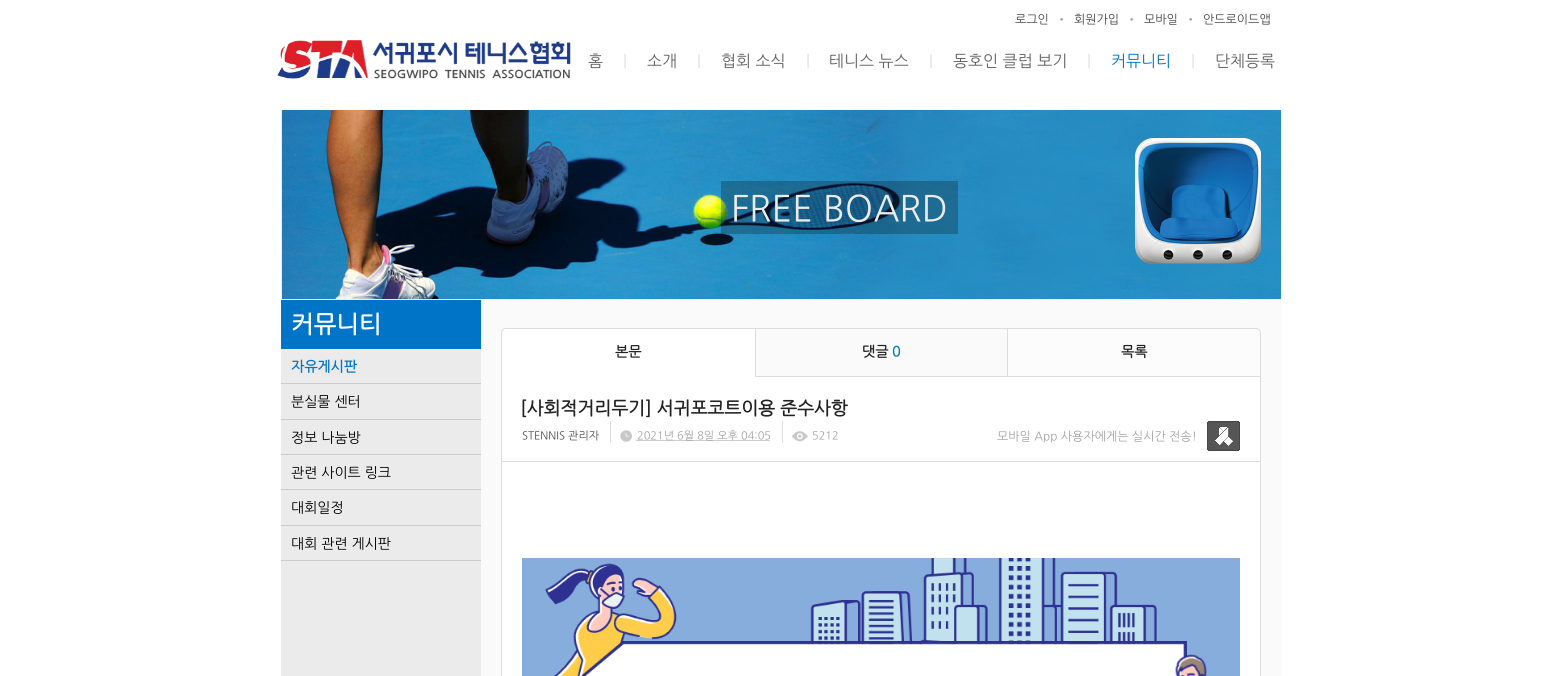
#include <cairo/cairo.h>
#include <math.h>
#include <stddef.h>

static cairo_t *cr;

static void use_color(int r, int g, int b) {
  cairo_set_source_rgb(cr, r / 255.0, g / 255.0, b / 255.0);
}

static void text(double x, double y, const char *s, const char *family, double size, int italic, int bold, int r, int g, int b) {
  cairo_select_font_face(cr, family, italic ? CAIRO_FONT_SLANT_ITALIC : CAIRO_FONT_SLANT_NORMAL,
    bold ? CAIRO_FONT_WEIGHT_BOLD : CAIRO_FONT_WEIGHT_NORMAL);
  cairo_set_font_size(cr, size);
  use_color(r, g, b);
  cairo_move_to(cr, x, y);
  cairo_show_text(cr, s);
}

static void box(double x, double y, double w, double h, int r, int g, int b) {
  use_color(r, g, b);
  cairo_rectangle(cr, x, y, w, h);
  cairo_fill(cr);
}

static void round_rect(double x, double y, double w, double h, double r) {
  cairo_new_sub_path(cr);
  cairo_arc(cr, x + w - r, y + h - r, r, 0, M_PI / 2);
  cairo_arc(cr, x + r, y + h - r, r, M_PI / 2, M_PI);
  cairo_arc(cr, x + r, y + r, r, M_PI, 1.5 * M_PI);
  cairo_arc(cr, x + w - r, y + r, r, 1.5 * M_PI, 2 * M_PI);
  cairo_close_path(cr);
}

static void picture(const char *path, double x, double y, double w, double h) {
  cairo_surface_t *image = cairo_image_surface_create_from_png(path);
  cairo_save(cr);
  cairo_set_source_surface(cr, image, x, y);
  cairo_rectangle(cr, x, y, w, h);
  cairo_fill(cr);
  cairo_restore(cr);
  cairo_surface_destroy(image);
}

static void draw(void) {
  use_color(255, 255, 255);
  cairo_paint(cr);
  picture("img_01.png", 277, 40, 294, 39);
  box(281, 110, 200, 566, 235, 235, 235);
  box(281, 560, 200, 1, 204, 204, 204);
  box(281, 300, 200, 49, 0, 117, 200);
  box(281, 383, 200, 1, 204, 204, 204);
  box(281, 419, 200, 1, 204, 204, 204);
  box(281, 454, 200, 1, 204, 204, 204);
  box(281, 489, 200, 1, 204, 204, 204);
  box(281, 525, 200, 1, 204, 204, 204);
  box(481, 299, 800, 377, 250, 250, 250);
  picture("img_02.png", 282, 110, 999, 189);
  cairo_set_source_rgba(cr, 0.043, 0.047, 0.051, 0.26);
  cairo_rectangle(cr, 721, 181, 237, 53);
  cairo_fill(cr);
  picture("img_03.png", 1135, 138, 126, 126);
  round_rect(501.5, 328.5, 759, 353, 4.5);
  use_color(221, 221, 221);
  cairo_set_line_width(cr, 1);
  cairo_stroke(cr);
  use_color(255, 255, 255);
  cairo_new_path(cr);
  cairo_move_to(cr, 507, 329);
  cairo_line_to(cr, 755, 329);
  cairo_line_to(cr, 755, 377);
  cairo_line_to(cr, 502, 377);
  cairo_line_to(cr, 502, 334);
  cairo_curve_to(cr, 502, 331, 504, 329, 507, 329);
  cairo_close_path(cr);
  cairo_fill(cr);
  box(755, 376, 252, 1, 221, 221, 221);
  box(755, 329, 1, 48, 221, 221, 221);
  use_color(252, 252, 252);
  cairo_new_path(cr);
  cairo_move_to(cr, 1007, 329);
  cairo_line_to(cr, 1255, 329);
  cairo_curve_to(cr, 1258, 329, 1260, 331, 1260, 334);
  cairo_line_to(cr, 1260, 377);
  cairo_line_to(cr, 1007, 377);
  cairo_close_path(cr);
  cairo_fill(cr);
  box(1007, 376, 253, 1, 221, 221, 221);
  box(1007, 329, 1, 48, 221, 221, 221);
  box(502, 377, 758, 299, 255, 255, 255);
  box(502, 461, 758, 1, 221, 221, 221);
  box(610, 421, 1, 22, 221, 221, 221);
  cairo_new_path(cr);
  cairo_move_to(cr, 636.5, 440.5);
  cairo_line_to(cr, 770.5, 440.5);
  use_color(157, 157, 157);
  cairo_set_dash(cr, (double[]){1, 1}, 2, 0);
  cairo_stroke(cr);
  box(782, 421, 1, 22, 221, 221, 221);
  picture("img_04.png", 1207, 421, 33, 30);
  picture("img_05.png", 522, 558, 718, 118);
  text(1015, 23, "로그인", "NanumGothic", 12, 0, 0, 66, 66, 66);
  text(1056, 23, "•", "NanumGothic", 12, 0, 0, 161, 161, 161);
  text(1074, 23, "회원가입", "NanumGothic", 12, 0, 0, 66, 66, 66);
  text(1126, 23, "•", "NanumGothic", 12, 0, 0, 161, 161, 161);
  text(1144, 23, "모바일", "NanumGothic", 12, 0, 0, 66, 66, 66);
  text(1185, 23, "•", "NanumGothic", 12, 0, 0, 161, 161, 161);
  text(1203, 23, "안드로이드앱", "NanumGothic", 12, 0, 0, 66, 66, 66);
  text(588, 66, "홈", "NanumGothic", 16, 0, 0, 99, 99, 99);
  text(623, 66, "|", "NanumGothic", 16, 0, 0, 222, 222, 222);
  text(647, 66, "소개", "NanumGothic", 16, 0, 0, 99, 99, 99);
  text(697, 66, "|", "NanumGothic", 16, 0, 0, 222, 222, 222);
  text(721, 66, "협회 소식", "NanumGothic", 16, 0, 0, 99, 99, 99);
  text(806, 66, "|", "NanumGothic", 16, 0, 0, 222, 222, 222);
  text(829, 66, "테니스 뉴스", "NanumGothic", 16, 0, 0, 99, 99, 99);
  text(929, 66, "|", "NanumGothic", 16, 0, 0, 222, 222, 222);
  text(953, 66, "동호인 클럽 보기", "NanumGothic", 16, 0, 0, 99, 99, 99);
  text(1087, 66, "|", "NanumGothic", 16, 0, 0, 222, 222, 222);
  text(1111, 66, "커뮤니티", "NanumGothic", 16, 0, 0, 0, 117, 200);
  text(1191, 66, "|", "NanumGothic", 16, 0, 0, 222, 222, 222);
  text(1215, 66, "단체등록", "NanumGothic", 16, 0, 0, 99, 99, 99);
  text(291, 332, "커뮤니티", "NanumGothic", 24, 0, 1, 255, 255, 255);
  text(291, 371, "자유게시판", "NanumGothic", 14, 0, 1, 0, 117, 200);
  text(291, 406, "분실물 센터", "NanumGothic", 14, 0, 0, 0, 0, 0);
  text(291, 442, "정보 나눔방", "NanumGothic", 14, 0, 0, 0, 0, 0);
  text(291, 477, "관련 사이트 링크", "NanumGothic", 14, 0, 0, 0, 0, 0);
  text(291, 512, "대회일정", "NanumGothic", 14, 0, 0, 0, 0, 0);
  text(291, 548, "대회 관련 게시판", "NanumGothic", 14, 0, 0, 0, 0, 0);
  text(731, 220, "FREE BOARD", "NanumGothic", 36, 0, 0, 235, 235, 235);
  text(615, 356, "본문", "NanumGothic", 14, 0, 1, 34, 34, 34);
  text(862, 356, "댓글", "NanumGothic", 14, 0, 1, 34, 34, 34);
  text(892, 356, "0", "NanumGothic", 14, 0, 1, 0, 117, 200);
  text(1121, 356, "목록", "NanumGothic", 14, 0, 1, 34, 34, 34);
  text(520, 414, "[사회적거리두기] 서귀포코트이용 준수사항", "NanumGothic", 18, 0, 1, 34, 34, 34);
  text(522, 439, "STENNIS 관리자", "NanumGothic", 11, 0, 0, 76, 76, 76);
  text(619, 439, "C", "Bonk", 22, 0, 0, 200, 200, 200);
  text(637, 439, "2021년 6월 8일 오후 04:05", "NanumGothic", 11, 0, 0, 161, 161, 161);
  text(791, 439, "e", "Bonk", 22, 0, 0, 200, 200, 200);
  text(812, 439, "5212", "NanumGothic", 11, 0, 0, 161, 161, 161);
  text(997, 440, "모바일 App 사용자에게는 실시간 전송!", "NanumGothic", 12, 0, 0, 161, 161, 161);
}

int main(void) {
  cairo_surface_t *surface = cairo_image_surface_create(CAIRO_FORMAT_RGB24, 1562, 676);
  cr = cairo_create(surface);
  cairo_font_options_t *options = cairo_font_options_create();
  cairo_font_options_set_hint_metrics(options, CAIRO_HINT_METRICS_OFF);
  cairo_font_options_set_hint_style(options, CAIRO_HINT_STYLE_NONE);
  cairo_set_font_options(cr, options);
  cairo_set_miter_limit(cr, 4);
  draw();
  cairo_surface_write_to_png(surface, "out.png");
  cairo_font_options_destroy(options);
  cairo_destroy(cr);
  cairo_surface_destroy(surface);
  return 0;
}
